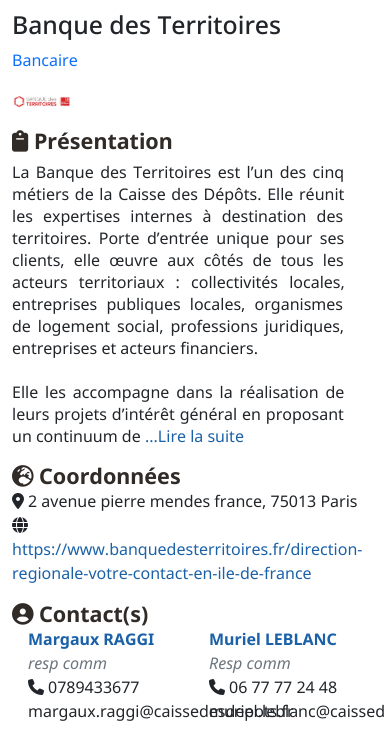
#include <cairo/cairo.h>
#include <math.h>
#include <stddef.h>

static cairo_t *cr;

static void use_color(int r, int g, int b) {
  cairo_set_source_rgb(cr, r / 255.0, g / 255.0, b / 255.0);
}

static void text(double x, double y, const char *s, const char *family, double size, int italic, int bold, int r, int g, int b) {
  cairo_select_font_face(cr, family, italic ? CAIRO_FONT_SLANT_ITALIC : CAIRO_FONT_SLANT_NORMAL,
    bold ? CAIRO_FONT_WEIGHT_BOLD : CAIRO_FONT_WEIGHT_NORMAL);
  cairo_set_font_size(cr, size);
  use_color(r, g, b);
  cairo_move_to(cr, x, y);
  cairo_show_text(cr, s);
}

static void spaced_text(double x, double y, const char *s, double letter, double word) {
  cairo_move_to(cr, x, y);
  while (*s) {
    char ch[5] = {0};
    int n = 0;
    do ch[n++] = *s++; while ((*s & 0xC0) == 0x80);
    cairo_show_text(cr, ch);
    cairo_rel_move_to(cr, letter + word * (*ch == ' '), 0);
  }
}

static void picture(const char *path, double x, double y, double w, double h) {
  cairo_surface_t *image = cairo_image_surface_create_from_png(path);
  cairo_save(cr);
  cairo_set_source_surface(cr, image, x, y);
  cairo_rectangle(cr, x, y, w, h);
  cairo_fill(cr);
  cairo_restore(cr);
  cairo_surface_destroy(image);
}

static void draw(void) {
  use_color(255, 255, 255);
  cairo_paint(cr);
  picture("img_01.png", 13, 95, 57, 13);
  picture("img_02.png", 12, 130, 17, 22);
  picture("img_03.png", 12, 465, 22, 22);
  picture("img_04.png", 12, 493, 12, 16);
  picture("img_05.png", 12, 517, 16, 16);
  picture("img_06.png", 12, 603, 22, 22);
  picture("img_07.png", 28, 679, 16, 16);
  picture("img_07.png", 209, 679, 16, 16);
  text(12, 34, "Banque des Territoires", "Noto Sans Medium", 24.75, 0, 0, 33, 37, 41);
  text(12, 66, "Bancaire", "Noto Sans", 16, 0, 0, 13, 110, 253);
  text(34, 149, "Présentation", "Noto Sans", 21.5, 0, 1, 48, 43, 39);
  cairo_select_font_face(cr, "Noto Sans", CAIRO_FONT_SLANT_NORMAL, CAIRO_FONT_WEIGHT_NORMAL);
  cairo_set_font_size(cr, 16);
  use_color(33, 37, 41);
  spaced_text(12, 178, "La Banque des Territoires est l’un des cinq", 0, 2.25);
  spaced_text(12, 200, "métiers de la Caisse des Dépôts. Elle réunit", 0, 1.5);
  spaced_text(12, 222, "les expertises internes à destination des", 0, 6);
  spaced_text(12, 244, "territoires. Porte d’entrée unique pour ses", 0, 3.25);
  spaced_text(12, 266, "clients, elle œuvre aux côtés de tous les", 0, 5);
  spaced_text(12, 288, "acteurs territoriaux : collectivités locales,", 0, 7);
  spaced_text(12, 310, "entreprises publiques locales, organismes", 0, 5);
  spaced_text(12, 332, "de logement social, professions juridiques,", 0, 2.75);
  text(12, 354, "entreprises et acteurs financiers.", "Noto Sans", 16, 0, 0, 33, 37, 41);
  spaced_text(12, 398, "Elle les accompagne dans la réalisation de", 0, 2.75);
  spaced_text(12, 420, "leurs projets d’intérêt général en proposant", 0, 0.75);
  text(12, 442, "un continuum de", "Noto Sans", 16, 0, 0, 33, 37, 41);
  text(145, 442, "...Lire la suite", "Noto Sans", 16, 0, 0, 27, 97, 167);
  text(39, 484, "Coordonnées", "Noto Sans", 21.5, 0, 1, 48, 43, 39);
  text(28, 507, "2 avenue pierre mendes france, 75013 Paris", "Noto Sans", 16, 0, 0, 33, 37, 41);
  text(12, 555, "https://www.banquedesterritoires.fr/direction-", "Noto Sans", 16, 0, 0, 27, 97, 167);
  text(12, 579, "regionale-votre-contact-en-ile-de-france", "Noto Sans", 16, 0, 0, 27, 97, 167);
  text(39, 622, "Contact(s)", "Noto Sans", 21.5, 0, 1, 48, 43, 39);
  text(28, 645, "Margaux RAGGI", "Noto Sans", 16, 0, 1, 27, 97, 167);
  text(28, 669, "resp comm", "Noto Sans", 16, 1, 0, 108, 117, 125);
  text(48, 693, "0789433677", "Noto Sans", 16, 0, 0, 33, 37, 41);
  text(28, 717, "margaux.raggi@caissedesdepots.fr", "Noto Sans", 16, 0, 0, 33, 37, 41);
  text(209, 645, "Muriel LEBLANC", "Noto Sans", 16, 0, 1, 27, 97, 167);
  text(209, 669, "Resp comm", "Noto Sans", 16, 1, 0, 108, 117, 125);
  text(229, 693, "06 77 77 24 48", "Noto Sans", 16, 0, 0, 33, 37, 41);
  text(209, 717, "muriel.leblanc@caissed", "Noto Sans", 16, 0, 0, 33, 37, 41);
}

int main(void) {
  cairo_surface_t *surface = cairo_image_surface_create(CAIRO_FORMAT_RGB24, 386, 755);
  cr = cairo_create(surface);
  cairo_font_options_t *options = cairo_font_options_create();
  cairo_font_options_set_hint_metrics(options, CAIRO_HINT_METRICS_OFF);
  cairo_font_options_set_hint_style(options, CAIRO_HINT_STYLE_NONE);
  cairo_set_font_options(cr, options);
  cairo_set_miter_limit(cr, 4);
  draw();
  cairo_surface_write_to_png(surface, "out.png");
  cairo_font_options_destroy(options);
  cairo_destroy(cr);
  cairo_surface_destroy(surface);
  return 0;
}
